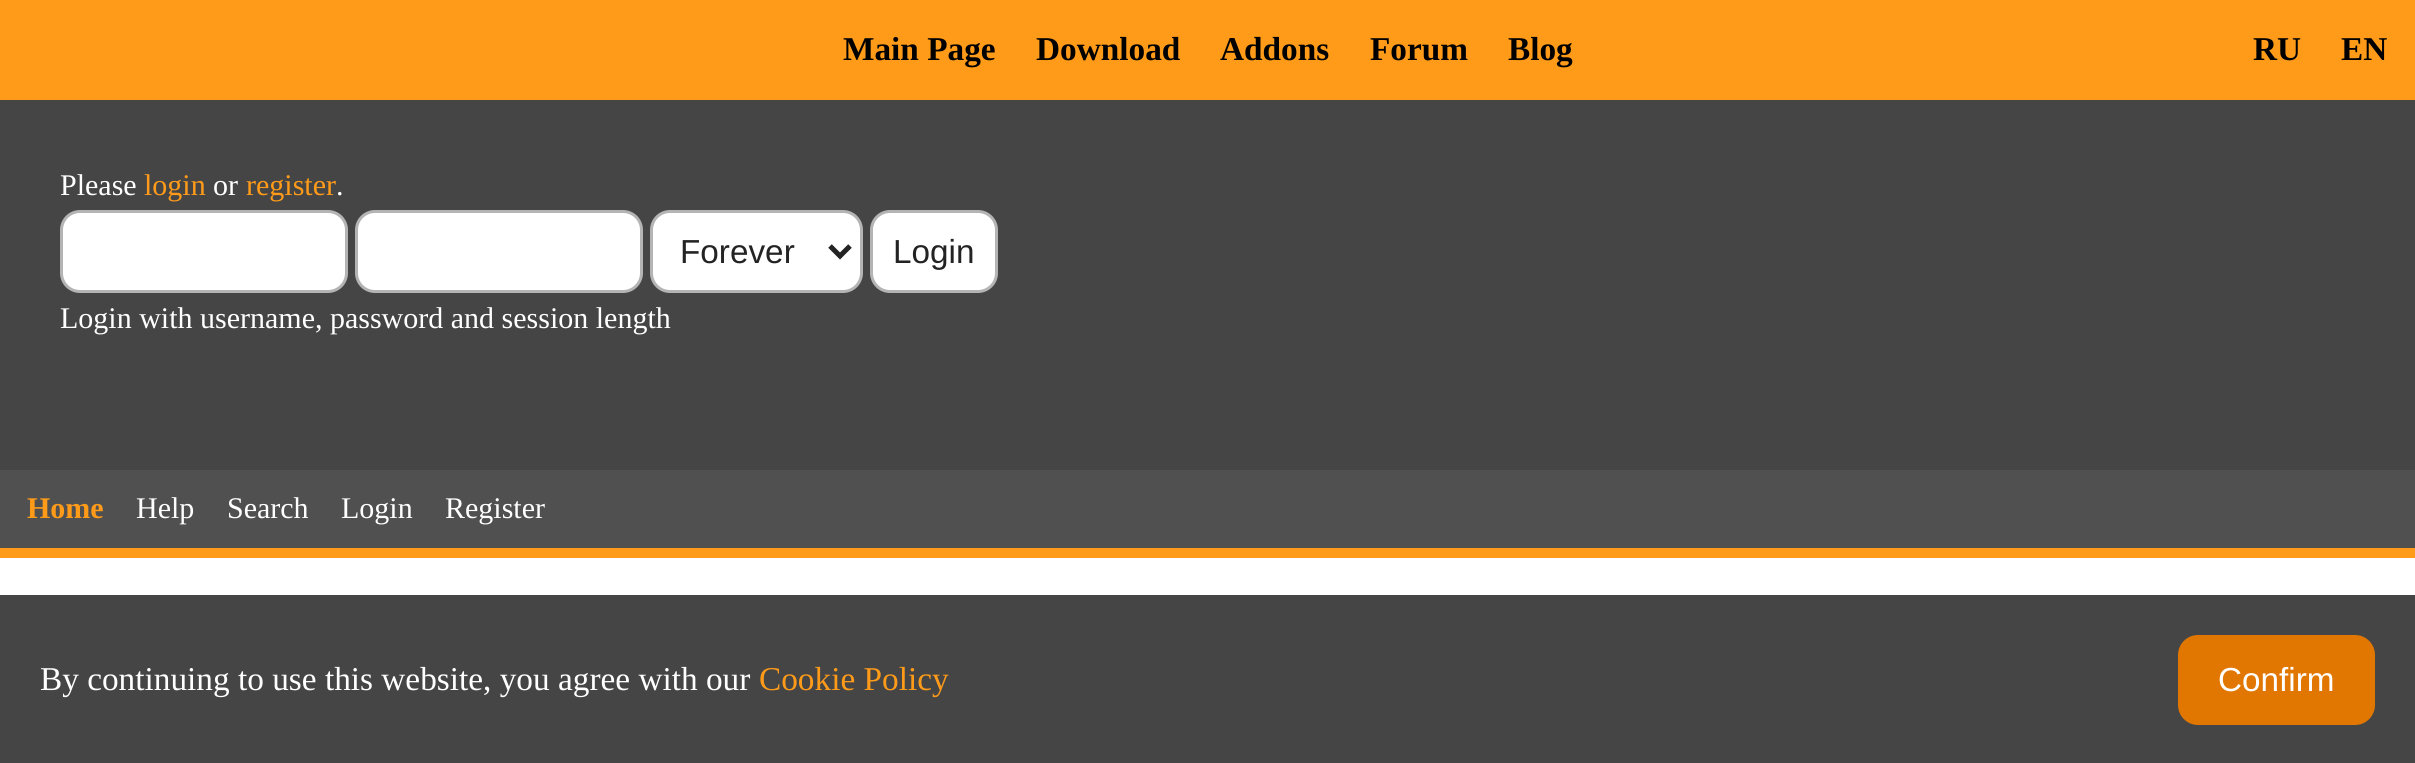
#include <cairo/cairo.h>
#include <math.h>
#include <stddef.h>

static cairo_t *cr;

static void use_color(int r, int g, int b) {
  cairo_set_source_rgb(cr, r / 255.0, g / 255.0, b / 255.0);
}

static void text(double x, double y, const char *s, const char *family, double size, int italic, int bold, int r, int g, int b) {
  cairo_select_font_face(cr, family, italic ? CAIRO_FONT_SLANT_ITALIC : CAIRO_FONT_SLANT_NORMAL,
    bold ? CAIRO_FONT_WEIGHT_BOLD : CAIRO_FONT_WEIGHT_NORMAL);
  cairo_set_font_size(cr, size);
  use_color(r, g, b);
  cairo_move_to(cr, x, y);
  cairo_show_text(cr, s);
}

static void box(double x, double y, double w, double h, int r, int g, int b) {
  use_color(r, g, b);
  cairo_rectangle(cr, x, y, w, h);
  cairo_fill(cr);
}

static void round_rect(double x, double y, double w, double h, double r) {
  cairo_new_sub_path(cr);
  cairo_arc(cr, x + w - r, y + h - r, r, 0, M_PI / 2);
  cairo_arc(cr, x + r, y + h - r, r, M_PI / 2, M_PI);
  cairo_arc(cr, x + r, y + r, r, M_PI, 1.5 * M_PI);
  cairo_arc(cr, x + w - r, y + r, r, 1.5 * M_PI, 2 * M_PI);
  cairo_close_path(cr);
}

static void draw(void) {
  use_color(69, 69, 69);
  cairo_paint(cr);
  box(0, 0, 2415, 100, 255, 155, 25);
  use_color(255, 255, 255);
  round_rect(61.5, 211.5, 285, 80, 18.5);
  cairo_fill_preserve(cr);
  use_color(180, 180, 180);
  cairo_set_line_width(cr, 3);
  cairo_stroke(cr);
  use_color(255, 255, 255);
  round_rect(356.5, 211.5, 285, 80, 18.5);
  cairo_fill_preserve(cr);
  use_color(180, 180, 180);
  cairo_stroke(cr);
  use_color(255, 255, 255);
  round_rect(651.5, 211.5, 210, 80, 18.5);
  cairo_fill_preserve(cr);
  use_color(180, 180, 180);
  cairo_stroke(cr);
  cairo_new_path(cr);
  cairo_move_to(cr, 830, 246);
  cairo_line_to(cr, 840, 256);
  cairo_line_to(cr, 850, 246);
  use_color(35, 35, 35);
  cairo_set_line_width(cr, 5);
  cairo_stroke(cr);
  use_color(255, 255, 255);
  round_rect(871.5, 211.5, 125, 80, 18.5);
  cairo_fill_preserve(cr);
  use_color(180, 180, 180);
  cairo_set_line_width(cr, 3);
  cairo_stroke(cr);
  box(0, 470, 2415, 78, 80, 80, 80);
  box(0, 548, 2415, 10, 255, 155, 25);
  box(0, 558, 2415, 37, 255, 255, 255);
  use_color(225, 118, 0);
  round_rect(2178, 635, 197, 90, 20);
  cairo_fill(cr);
  text(843, 60, "Main Page", "Liberation Serif", 33.3, 0, 1, 0, 0, 0);
  text(1036, 60, "Download", "Liberation Serif", 33.3, 0, 1, 0, 0, 0);
  text(1220, 60, "Addons", "Liberation Serif", 33.3, 0, 1, 0, 0, 0);
  text(1370, 60, "Forum", "Liberation Serif", 33.3, 0, 1, 0, 0, 0);
  text(1508, 60, "Blog", "Liberation Serif", 33.3, 0, 1, 0, 0, 0);
  text(2253, 60, "RU", "Liberation Serif", 33.3, 0, 1, 0, 0, 0);
  text(2341, 60, "EN", "Liberation Serif", 33.3, 0, 1, 0, 0, 0);
  text(60, 195, "Please", "Liberation Serif", 30, 0, 0, 255, 255, 255);
  text(144, 195, "login", "Liberation Serif", 30, 0, 0, 255, 155, 25);
  text(213, 195, "or", "Liberation Serif", 30, 0, 0, 255, 255, 255);
  text(246, 195, "register", "Liberation Serif", 30, 0, 0, 255, 155, 25);
  text(336, 195, ".", "Liberation Serif", 30, 0, 0, 255, 255, 255);
  text(680, 263, "Forever", "Liberation Sans", 33.3, 0, 0, 35, 35, 35);
  text(893, 263, "Login", "Liberation Sans", 33.3, 0, 0, 35, 35, 35);
  text(60, 328, "Login with username, password and session length", "Liberation Serif", 30, 0, 0, 255, 255, 255);
  text(27, 518, "Home", "Liberation Serif", 30, 0, 1, 255, 155, 25);
  text(136, 518, "Help", "Liberation Serif", 30, 0, 0, 255, 255, 255);
  text(227, 518, "Search", "Liberation Serif", 30, 0, 0, 255, 255, 255);
  text(341, 518, "Login", "Liberation Serif", 30, 0, 0, 255, 255, 255);
  text(445, 518, "Register", "Liberation Serif", 30, 0, 0, 255, 255, 255);
  text(40, 690, "By continuing to use this website, you agree with our", "Liberation Serif", 33.3, 0, 0, 255, 255, 255);
  text(759, 690, "Cookie Policy", "Liberation Serif", 33.3, 0, 0, 255, 155, 25);
  text(2218, 691, "Confirm", "Liberation Sans", 33.3, 0, 0, 255, 255, 255);
}

int main(void) {
  cairo_surface_t *surface = cairo_image_surface_create(CAIRO_FORMAT_RGB24, 2415, 763);
  cr = cairo_create(surface);
  cairo_font_options_t *options = cairo_font_options_create();
  cairo_font_options_set_hint_metrics(options, CAIRO_HINT_METRICS_OFF);
  cairo_font_options_set_hint_style(options, CAIRO_HINT_STYLE_NONE);
  cairo_set_font_options(cr, options);
  cairo_set_miter_limit(cr, 4);
  draw();
  cairo_surface_write_to_png(surface, "out.png");
  cairo_font_options_destroy(options);
  cairo_destroy(cr);
  cairo_surface_destroy(surface);
  return 0;
}
